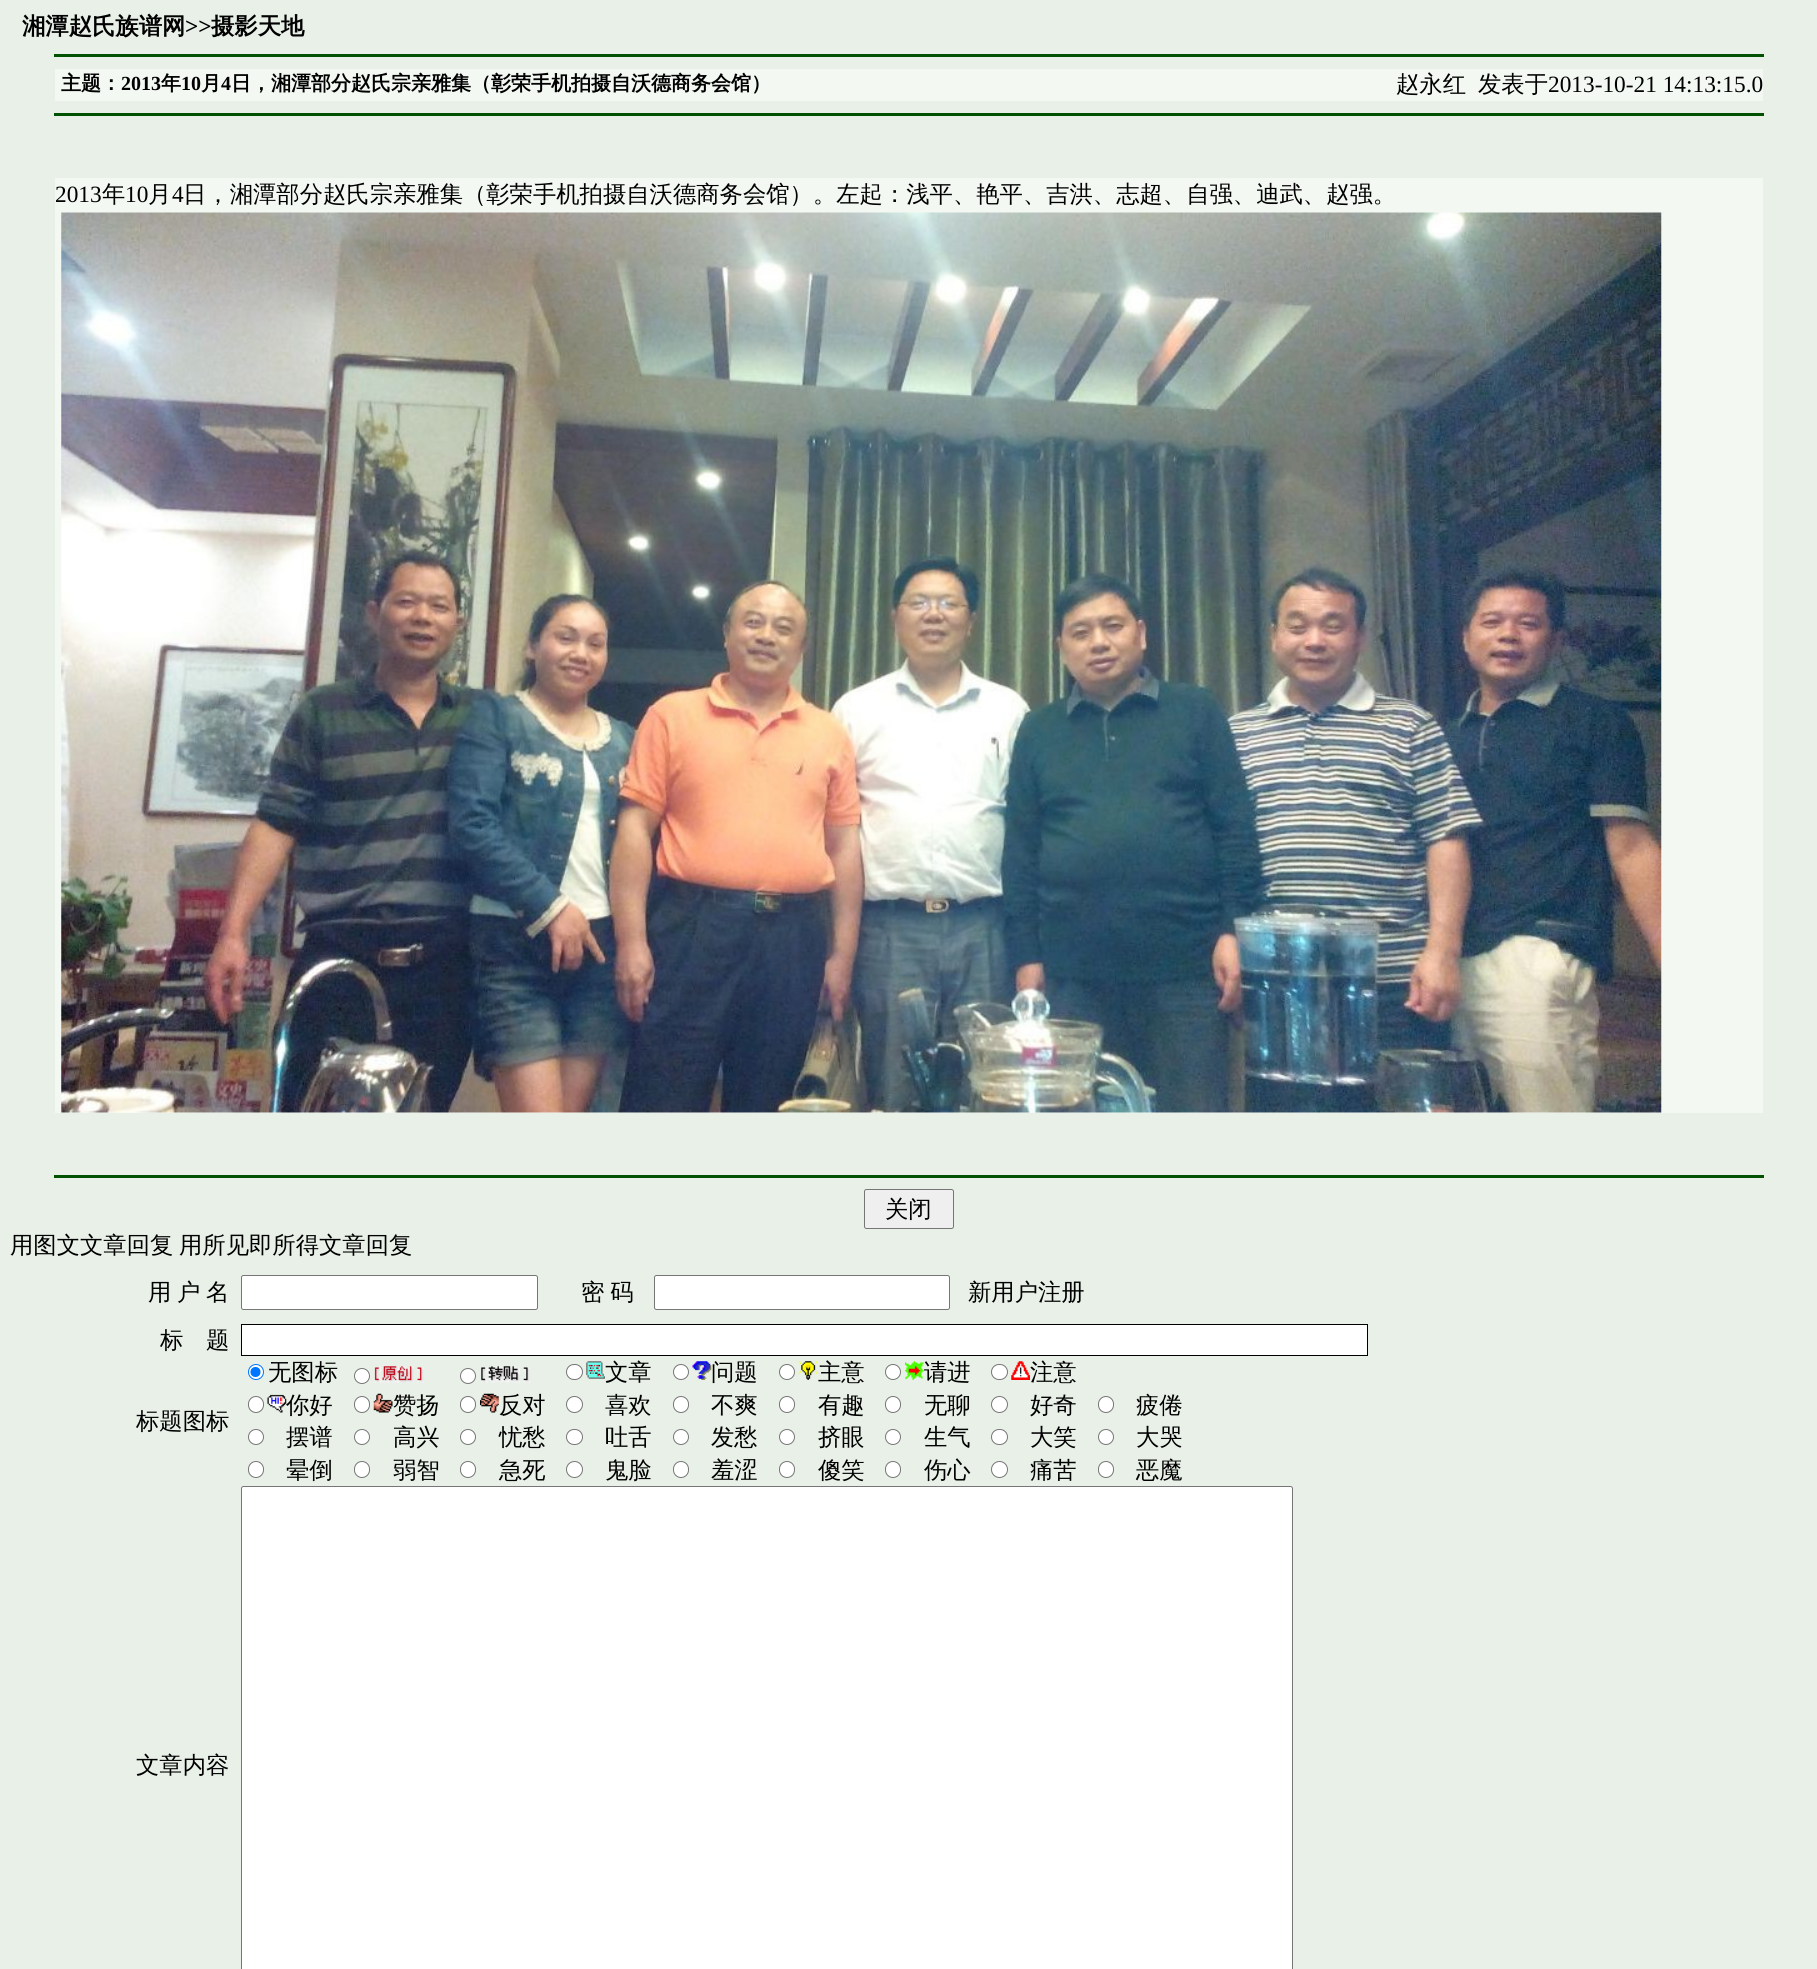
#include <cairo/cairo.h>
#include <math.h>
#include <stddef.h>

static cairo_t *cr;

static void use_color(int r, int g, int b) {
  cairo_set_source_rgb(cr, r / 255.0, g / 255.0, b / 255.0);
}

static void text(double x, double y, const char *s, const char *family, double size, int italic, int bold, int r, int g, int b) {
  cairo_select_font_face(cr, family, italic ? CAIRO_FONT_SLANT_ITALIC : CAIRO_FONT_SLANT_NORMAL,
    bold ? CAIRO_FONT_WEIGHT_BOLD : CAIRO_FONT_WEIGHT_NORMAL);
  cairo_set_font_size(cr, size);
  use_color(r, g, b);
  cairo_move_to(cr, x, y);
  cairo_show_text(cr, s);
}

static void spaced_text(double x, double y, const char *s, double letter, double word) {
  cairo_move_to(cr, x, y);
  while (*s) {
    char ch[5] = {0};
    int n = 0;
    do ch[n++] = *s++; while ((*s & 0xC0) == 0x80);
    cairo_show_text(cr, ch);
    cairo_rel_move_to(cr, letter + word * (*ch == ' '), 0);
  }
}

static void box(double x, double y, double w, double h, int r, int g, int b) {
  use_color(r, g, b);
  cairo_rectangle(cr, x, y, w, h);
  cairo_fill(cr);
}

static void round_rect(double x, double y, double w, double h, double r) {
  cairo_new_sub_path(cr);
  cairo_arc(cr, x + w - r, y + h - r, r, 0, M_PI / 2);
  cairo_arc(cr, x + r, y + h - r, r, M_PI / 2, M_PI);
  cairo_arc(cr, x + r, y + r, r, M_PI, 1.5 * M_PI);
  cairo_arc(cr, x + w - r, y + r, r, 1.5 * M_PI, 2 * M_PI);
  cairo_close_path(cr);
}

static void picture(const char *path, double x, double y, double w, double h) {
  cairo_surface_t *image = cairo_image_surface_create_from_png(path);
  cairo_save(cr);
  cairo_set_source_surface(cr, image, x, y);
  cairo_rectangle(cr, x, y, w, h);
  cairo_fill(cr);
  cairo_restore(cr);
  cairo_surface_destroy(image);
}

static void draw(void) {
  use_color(232, 240, 232);
  cairo_paint(cr);
  box(54, 54, 1710, 3, 0, 81, 0);
  box(55, 69, 1708, 32, 243, 248, 243);
  box(54, 113, 1710, 3, 0, 81, 0);
  box(55, 178, 1708, 935, 243, 248, 243);
  picture("img_01.png", 61, 212, 1601, 901);
  box(54, 1175, 1710, 3, 0, 81, 0);
  use_color(239, 239, 239);
  round_rect(864.5, 1189.5, 89, 39, 2);
  cairo_fill_preserve(cr);
  use_color(118, 118, 118);
  cairo_set_line_width(cr, 1);
  cairo_stroke(cr);
  use_color(255, 255, 255);
  round_rect(241.5, 1275.5, 296, 34, 2);
  cairo_fill_preserve(cr);
  use_color(118, 118, 118);
  cairo_stroke(cr);
  use_color(255, 255, 255);
  round_rect(654.5, 1275.5, 295, 34, 2);
  cairo_fill_preserve(cr);
  use_color(118, 118, 118);
  cairo_stroke(cr);
  use_color(255, 255, 255);
  cairo_rectangle(cr, 241.5, 1324.5, 1126, 31);
  cairo_fill_preserve(cr);
  use_color(0, 0, 0);
  cairo_stroke(cr);
  use_color(255, 255, 255);
  cairo_arc(cr, 256, 1372, 7.5, 0, 2 * M_PI);
  cairo_fill_preserve(cr);
  use_color(0, 117, 255);
  cairo_stroke(cr);
  cairo_arc(cr, 255.5, 1372, 5, 0, 2 * M_PI);
  cairo_fill(cr);
  use_color(255, 255, 255);
  cairo_arc(cr, 362, 1376, 7.5, 0, 2 * M_PI);
  cairo_fill_preserve(cr);
  use_color(118, 118, 118);
  cairo_stroke(cr);
  picture("img_02.png", 374, 1366, 50, 17);
  use_color(255, 255, 255);
  cairo_arc(cr, 468, 1376, 7.5, 0, 2 * M_PI);
  cairo_fill_preserve(cr);
  use_color(118, 118, 118);
  cairo_stroke(cr);
  picture("img_03.png", 481, 1366, 49, 17);
  use_color(255, 255, 255);
  round_rect(566.5, 1364.5, 16, 15, 7.5);
  cairo_fill_preserve(cr);
  use_color(118, 118, 118);
  cairo_stroke(cr);
  picture("img_04.png", 586, 1361, 19, 18);
  use_color(255, 255, 255);
  cairo_arc(cr, 681, 1372, 7.5, 0, 2 * M_PI);
  cairo_fill_preserve(cr);
  use_color(118, 118, 118);
  cairo_stroke(cr);
  picture("img_05.png", 692, 1361, 20, 19);
  use_color(255, 255, 255);
  cairo_arc(cr, 787, 1372, 7.5, 0, 2 * M_PI);
  cairo_fill_preserve(cr);
  use_color(118, 118, 118);
  cairo_stroke(cr);
  picture("img_06.png", 798, 1361, 20, 19);
  use_color(255, 255, 255);
  cairo_arc(cr, 893, 1372, 7.5, 0, 2 * M_PI);
  cairo_fill_preserve(cr);
  use_color(118, 118, 118);
  cairo_stroke(cr);
  picture("img_07.png", 905, 1361, 19, 19);
  use_color(255, 255, 255);
  round_rect(991.5, 1364.5, 16, 15, 7.5);
  cairo_fill_preserve(cr);
  use_color(118, 118, 118);
  cairo_stroke(cr);
  picture("img_08.png", 1011, 1361, 19, 19);
  use_color(255, 255, 255);
  round_rect(248.5, 1396.5, 15, 16, 7.5);
  cairo_fill_preserve(cr);
  use_color(118, 118, 118);
  cairo_stroke(cr);
  picture("img_09.png", 267, 1394, 20, 19);
  use_color(255, 255, 255);
  round_rect(354.5, 1396.5, 15, 16, 7.5);
  cairo_fill_preserve(cr);
  use_color(118, 118, 118);
  cairo_stroke(cr);
  picture("img_10.png", 373, 1393, 20, 20);
  use_color(255, 255, 255);
  round_rect(460.5, 1396.5, 15, 16, 7.5);
  cairo_fill_preserve(cr);
  use_color(118, 118, 118);
  cairo_stroke(cr);
  picture("img_11.png", 480, 1393, 19, 20);
  use_color(255, 255, 255);
  cairo_arc(cr, 574.5, 1404.5, 8, 0, 2 * M_PI);
  cairo_fill_preserve(cr);
  use_color(118, 118, 118);
  cairo_stroke(cr);
  use_color(255, 255, 255);
  round_rect(673.5, 1396.5, 15, 16, 7.5);
  cairo_fill_preserve(cr);
  use_color(118, 118, 118);
  cairo_stroke(cr);
  use_color(255, 255, 255);
  round_rect(779.5, 1396.5, 15, 16, 7.5);
  cairo_fill_preserve(cr);
  use_color(118, 118, 118);
  cairo_stroke(cr);
  use_color(255, 255, 255);
  round_rect(885.5, 1396.5, 15, 16, 7.5);
  cairo_fill_preserve(cr);
  use_color(118, 118, 118);
  cairo_stroke(cr);
  use_color(255, 255, 255);
  cairo_arc(cr, 999.5, 1404.5, 8, 0, 2 * M_PI);
  cairo_fill_preserve(cr);
  use_color(118, 118, 118);
  cairo_stroke(cr);
  use_color(255, 255, 255);
  round_rect(1098.5, 1396.5, 15, 16, 7.5);
  cairo_fill_preserve(cr);
  use_color(118, 118, 118);
  cairo_stroke(cr);
  use_color(255, 255, 255);
  cairo_arc(cr, 256, 1437, 7.5, 0, 2 * M_PI);
  cairo_fill_preserve(cr);
  use_color(118, 118, 118);
  cairo_stroke(cr);
  use_color(255, 255, 255);
  cairo_arc(cr, 362, 1437, 7.5, 0, 2 * M_PI);
  cairo_fill_preserve(cr);
  use_color(118, 118, 118);
  cairo_stroke(cr);
  use_color(255, 255, 255);
  cairo_arc(cr, 468, 1437, 7.5, 0, 2 * M_PI);
  cairo_fill_preserve(cr);
  use_color(118, 118, 118);
  cairo_stroke(cr);
  use_color(255, 255, 255);
  round_rect(566.5, 1429.5, 16, 15, 7.5);
  cairo_fill_preserve(cr);
  use_color(118, 118, 118);
  cairo_stroke(cr);
  use_color(255, 255, 255);
  cairo_arc(cr, 681, 1437, 7.5, 0, 2 * M_PI);
  cairo_fill_preserve(cr);
  use_color(118, 118, 118);
  cairo_stroke(cr);
  use_color(255, 255, 255);
  cairo_arc(cr, 787, 1437, 7.5, 0, 2 * M_PI);
  cairo_fill_preserve(cr);
  use_color(118, 118, 118);
  cairo_stroke(cr);
  use_color(255, 255, 255);
  cairo_arc(cr, 893, 1437, 7.5, 0, 2 * M_PI);
  cairo_fill_preserve(cr);
  use_color(118, 118, 118);
  cairo_stroke(cr);
  use_color(255, 255, 255);
  round_rect(991.5, 1429.5, 16, 15, 7.5);
  cairo_fill_preserve(cr);
  use_color(118, 118, 118);
  cairo_stroke(cr);
  use_color(255, 255, 255);
  cairo_arc(cr, 1106, 1437, 7.5, 0, 2 * M_PI);
  cairo_fill_preserve(cr);
  use_color(118, 118, 118);
  cairo_stroke(cr);
  use_color(255, 255, 255);
  round_rect(248.5, 1461.5, 15, 16, 7.5);
  cairo_fill_preserve(cr);
  use_color(118, 118, 118);
  cairo_stroke(cr);
  use_color(255, 255, 255);
  round_rect(354.5, 1461.5, 15, 16, 7.5);
  cairo_fill_preserve(cr);
  use_color(118, 118, 118);
  cairo_stroke(cr);
  use_color(255, 255, 255);
  round_rect(460.5, 1461.5, 15, 16, 7.5);
  cairo_fill_preserve(cr);
  use_color(118, 118, 118);
  cairo_stroke(cr);
  use_color(255, 255, 255);
  cairo_arc(cr, 574.5, 1469.5, 8, 0, 2 * M_PI);
  cairo_fill_preserve(cr);
  use_color(118, 118, 118);
  cairo_stroke(cr);
  use_color(255, 255, 255);
  round_rect(673.5, 1461.5, 15, 16, 7.5);
  cairo_fill_preserve(cr);
  use_color(118, 118, 118);
  cairo_stroke(cr);
  use_color(255, 255, 255);
  round_rect(779.5, 1461.5, 15, 16, 7.5);
  cairo_fill_preserve(cr);
  use_color(118, 118, 118);
  cairo_stroke(cr);
  use_color(255, 255, 255);
  round_rect(885.5, 1461.5, 15, 16, 7.5);
  cairo_fill_preserve(cr);
  use_color(118, 118, 118);
  cairo_stroke(cr);
  use_color(255, 255, 255);
  cairo_arc(cr, 999.5, 1469.5, 8, 0, 2 * M_PI);
  cairo_fill_preserve(cr);
  use_color(118, 118, 118);
  cairo_stroke(cr);
  use_color(255, 255, 255);
  round_rect(1098.5, 1461.5, 15, 16, 7.5);
  cairo_fill_preserve(cr);
  use_color(118, 118, 118);
  cairo_stroke(cr);
  use_color(255, 255, 255);
  round_rect(241.5, 1486.5, 1051, 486, 2);
  cairo_fill_preserve(cr);
  use_color(118, 118, 118);
  cairo_stroke(cr);
  text(22, 34, "湘潭赵氏族谱网", "WenQuanYi Zen Hei", 23.33, 0, 1, 0, 0, 0);
  text(185, 34, ">>", "Liberation Serif", 23.33, 0, 1, 0, 0, 0);
  text(211, 34, "摄影天地", "WenQuanYi Zen Hei", 23.33, 0, 1, 0, 0, 0);
  text(61, 90, "主题：", "WenQuanYi Zen Hei", 20, 0, 1, 0, 0, 0);
  text(121, 90, "2013", "Liberation Serif", 20, 0, 1, 0, 0, 0);
  text(161, 90, "年", "WenQuanYi Zen Hei", 20, 0, 1, 0, 0, 0);
  text(181, 90, "10", "Liberation Serif", 20, 0, 1, 0, 0, 0);
  text(201, 90, "月", "WenQuanYi Zen Hei", 20, 0, 1, 0, 0, 0);
  text(221, 90, "4", "Liberation Serif", 20, 0, 1, 0, 0, 0);
  text(231, 90, "日，湘潭部分赵氏宗亲雅集（彰荣手机拍摄自沃德商务会馆）", "WenQuanYi Zen Hei", 20, 0, 1, 0, 0, 0);
  text(1396, 92, "赵永红", "WenQuanYi Zen Hei Medium", 23.33, 0, 0, 0, 0, 0);
  text(1478, 92, "发表于", "WenQuanYi Zen Hei Medium", 23.33, 0, 0, 0, 0, 0);
  text(1548, 92, "2013-10-21 14:13:15.0", "Liberation Serif", 23.33, 0, 0, 0, 0, 0);
  text(55, 202, "2013", "Liberation Serif", 23.33, 0, 0, 0, 0, 0);
  text(102, 202, "年", "WenQuanYi Zen Hei Medium", 23.33, 0, 0, 0, 0, 0);
  text(125, 202, "10", "Liberation Serif", 23.33, 0, 0, 0, 0, 0);
  text(148, 202, "月", "WenQuanYi Zen Hei Medium", 23.33, 0, 0, 0, 0, 0);
  text(172, 202, "4", "Liberation Serif", 23.33, 0, 0, 0, 0, 0);
  text(183, 202, "日，湘潭部分赵氏宗亲雅集（彰荣手机拍摄自沃德商务会馆）。左起：浅平、艳平、吉洪、志超、自强、迪武、赵强。", "WenQuanYi Zen Hei Medium", 23.33, 0, 0, 0, 0, 0);
  text(885, 1217, "关闭", "WenQuanYi Zen Hei Medium", 23.33, 0, 0, 0, 0, 0);
  text(10, 1253, "用图文文章回复", "WenQuanYi Zen Hei Medium", 23.33, 0, 0, 0, 0, 0);
  text(179, 1253, "用所见即所得文章回复", "WenQuanYi Zen Hei Medium", 23.33, 0, 0, 0, 0, 0);
  text(148, 1300, "用", "WenQuanYi Zen Hei Medium", 23.33, 0, 0, 0, 0, 0);
  text(177, 1300, "户", "WenQuanYi Zen Hei Medium", 23.33, 0, 0, 0, 0, 0);
  text(206, 1300, "名", "WenQuanYi Zen Hei Medium", 23.33, 0, 0, 0, 0, 0);
  spaced_text(581, 1300, "密 码", 0, -1);
  text(968, 1300, "新用户注册", "WenQuanYi Zen Hei Medium", 23.33, 0, 0, 0, 0, 0);
  text(160, 1348, "标", "WenQuanYi Zen Hei Medium", 23.33, 0, 0, 0, 0, 0);
  text(206, 1348, "题", "WenQuanYi Zen Hei Medium", 23.33, 0, 0, 0, 0, 0);
  text(136, 1429, "标题图标", "WenQuanYi Zen Hei Medium", 23.33, 0, 0, 0, 0, 0);
  text(268, 1380, "无图标", "WenQuanYi Zen Hei Medium", 23.33, 0, 0, 0, 0, 0);
  text(605, 1380, "文章", "WenQuanYi Zen Hei Medium", 23.33, 0, 0, 0, 0, 0);
  text(711, 1380, "问题", "WenQuanYi Zen Hei Medium", 23.33, 0, 0, 0, 0, 0);
  text(818, 1380, "主意", "WenQuanYi Zen Hei Medium", 23.33, 0, 0, 0, 0, 0);
  text(924, 1380, "请进", "WenQuanYi Zen Hei Medium", 23.33, 0, 0, 0, 0, 0);
  text(1030, 1380, "注意", "WenQuanYi Zen Hei Medium", 23.33, 0, 0, 0, 0, 0);
  text(286, 1413, "你好", "WenQuanYi Zen Hei Medium", 23.33, 0, 0, 0, 0, 0);
  text(393, 1413, "赞扬", "WenQuanYi Zen Hei Medium", 23.33, 0, 0, 0, 0, 0);
  text(499, 1413, "反对", "WenQuanYi Zen Hei Medium", 23.33, 0, 0, 0, 0, 0);
  text(605, 1413, "喜欢", "WenQuanYi Zen Hei Medium", 23.33, 0, 0, 0, 0, 0);
  text(711, 1413, "不爽", "WenQuanYi Zen Hei Medium", 23.33, 0, 0, 0, 0, 0);
  text(818, 1413, "有趣", "WenQuanYi Zen Hei Medium", 23.33, 0, 0, 0, 0, 0);
  text(924, 1413, "无聊", "WenQuanYi Zen Hei Medium", 23.33, 0, 0, 0, 0, 0);
  text(1030, 1413, "好奇", "WenQuanYi Zen Hei Medium", 23.33, 0, 0, 0, 0, 0);
  text(1136, 1413, "疲倦", "WenQuanYi Zen Hei Medium", 23.33, 0, 0, 0, 0, 0);
  text(286, 1445, "摆谱", "WenQuanYi Zen Hei Medium", 23.33, 0, 0, 0, 0, 0);
  text(393, 1445, "高兴", "WenQuanYi Zen Hei Medium", 23.33, 0, 0, 0, 0, 0);
  text(499, 1445, "忧愁", "WenQuanYi Zen Hei Medium", 23.33, 0, 0, 0, 0, 0);
  text(605, 1445, "吐舌", "WenQuanYi Zen Hei Medium", 23.33, 0, 0, 0, 0, 0);
  text(711, 1445, "发愁", "WenQuanYi Zen Hei Medium", 23.33, 0, 0, 0, 0, 0);
  text(818, 1445, "挤眼", "WenQuanYi Zen Hei Medium", 23.33, 0, 0, 0, 0, 0);
  text(924, 1445, "生气", "WenQuanYi Zen Hei Medium", 23.33, 0, 0, 0, 0, 0);
  text(1030, 1445, "大笑", "WenQuanYi Zen Hei Medium", 23.33, 0, 0, 0, 0, 0);
  text(1136, 1445, "大哭", "WenQuanYi Zen Hei Medium", 23.33, 0, 0, 0, 0, 0);
  text(286, 1478, "晕倒", "WenQuanYi Zen Hei Medium", 23.33, 0, 0, 0, 0, 0);
  text(393, 1478, "弱智", "WenQuanYi Zen Hei Medium", 23.33, 0, 0, 0, 0, 0);
  text(499, 1478, "急死", "WenQuanYi Zen Hei Medium", 23.33, 0, 0, 0, 0, 0);
  text(605, 1478, "鬼脸", "WenQuanYi Zen Hei Medium", 23.33, 0, 0, 0, 0, 0);
  text(711, 1478, "羞涩", "WenQuanYi Zen Hei Medium", 23.33, 0, 0, 0, 0, 0);
  text(818, 1478, "傻笑", "WenQuanYi Zen Hei Medium", 23.33, 0, 0, 0, 0, 0);
  text(924, 1478, "伤心", "WenQuanYi Zen Hei Medium", 23.33, 0, 0, 0, 0, 0);
  text(1030, 1478, "痛苦", "WenQuanYi Zen Hei Medium", 23.33, 0, 0, 0, 0, 0);
  text(1136, 1478, "恶魔", "WenQuanYi Zen Hei Medium", 23.33, 0, 0, 0, 0, 0);
  text(136, 1773, "文章内容", "WenQuanYi Zen Hei Medium", 23.33, 0, 0, 0, 0, 0);
}

int main(void) {
  cairo_surface_t *surface = cairo_image_surface_create(CAIRO_FORMAT_RGB24, 1817, 1969);
  cr = cairo_create(surface);
  cairo_font_options_t *options = cairo_font_options_create();
  cairo_font_options_set_hint_metrics(options, CAIRO_HINT_METRICS_OFF);
  cairo_font_options_set_hint_style(options, CAIRO_HINT_STYLE_NONE);
  cairo_set_font_options(cr, options);
  cairo_set_miter_limit(cr, 4);
  draw();
  cairo_surface_write_to_png(surface, "out.png");
  cairo_font_options_destroy(options);
  cairo_destroy(cr);
  cairo_surface_destroy(surface);
  return 0;
}
